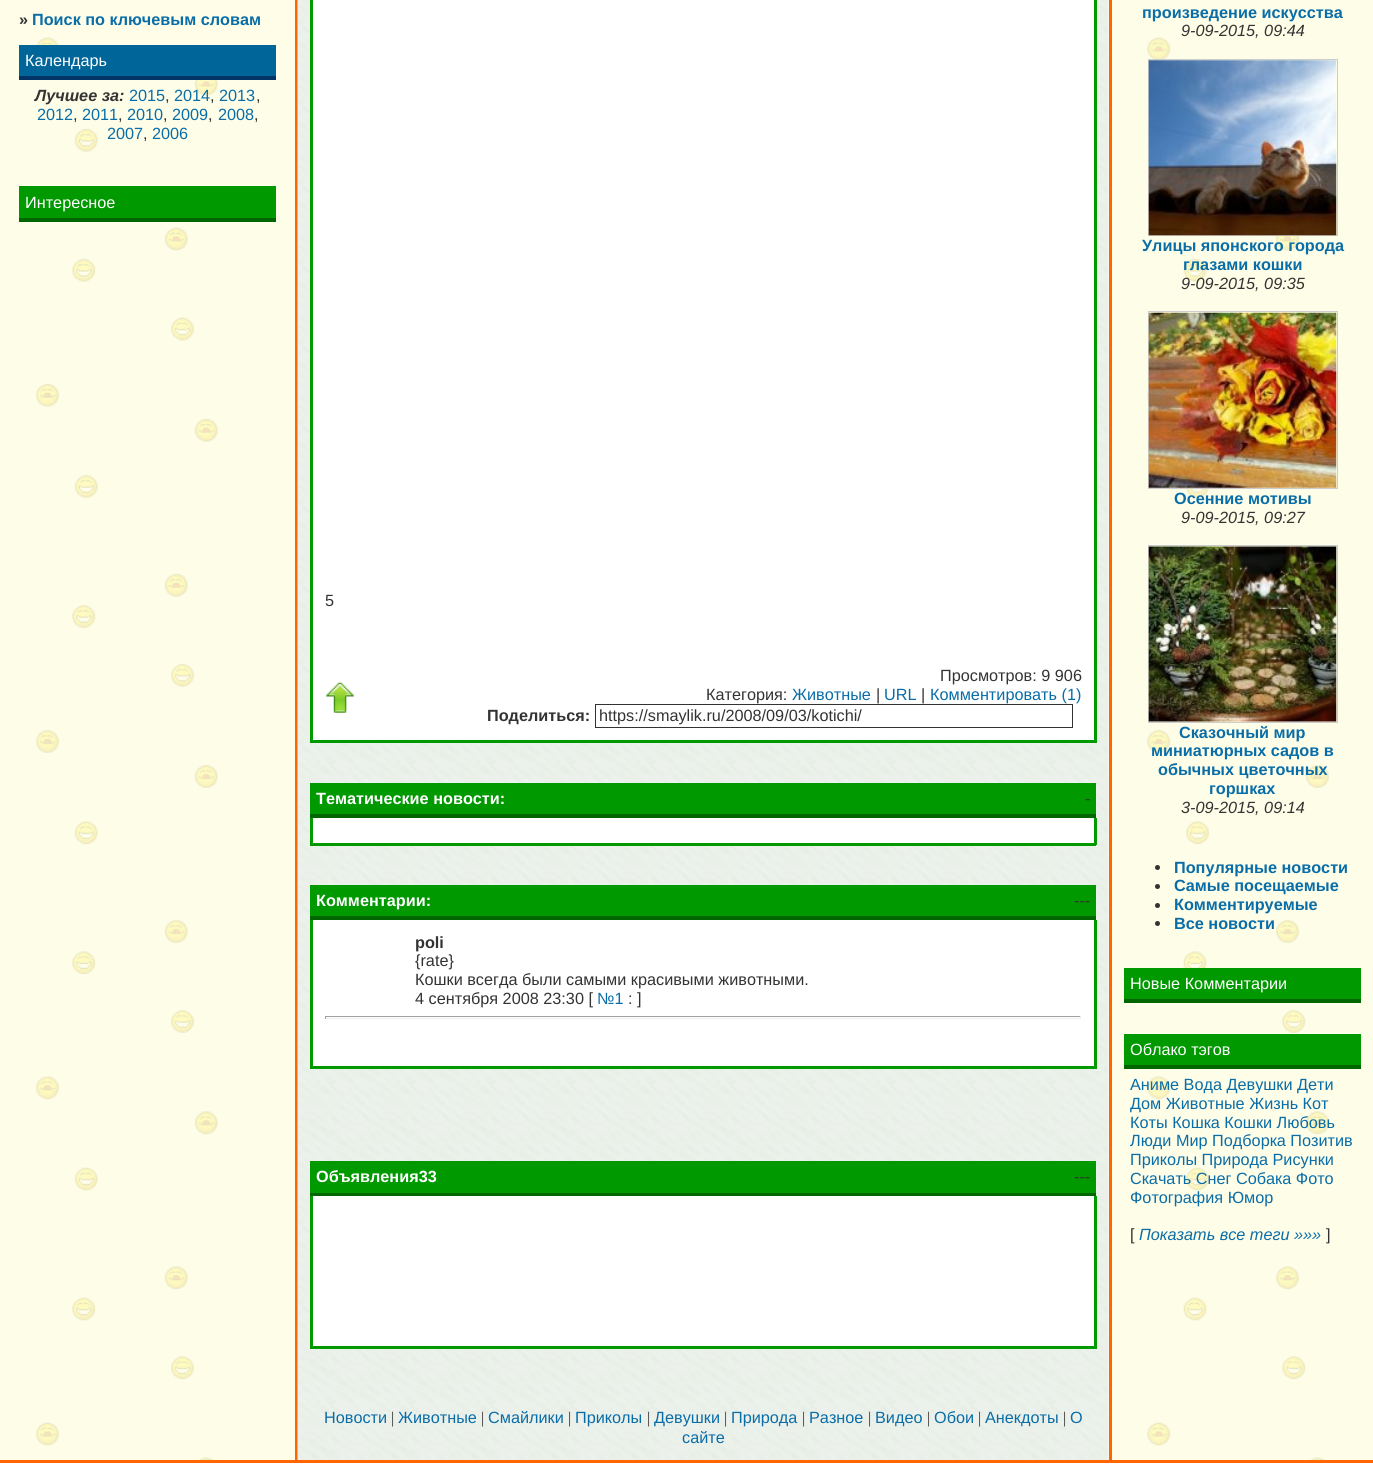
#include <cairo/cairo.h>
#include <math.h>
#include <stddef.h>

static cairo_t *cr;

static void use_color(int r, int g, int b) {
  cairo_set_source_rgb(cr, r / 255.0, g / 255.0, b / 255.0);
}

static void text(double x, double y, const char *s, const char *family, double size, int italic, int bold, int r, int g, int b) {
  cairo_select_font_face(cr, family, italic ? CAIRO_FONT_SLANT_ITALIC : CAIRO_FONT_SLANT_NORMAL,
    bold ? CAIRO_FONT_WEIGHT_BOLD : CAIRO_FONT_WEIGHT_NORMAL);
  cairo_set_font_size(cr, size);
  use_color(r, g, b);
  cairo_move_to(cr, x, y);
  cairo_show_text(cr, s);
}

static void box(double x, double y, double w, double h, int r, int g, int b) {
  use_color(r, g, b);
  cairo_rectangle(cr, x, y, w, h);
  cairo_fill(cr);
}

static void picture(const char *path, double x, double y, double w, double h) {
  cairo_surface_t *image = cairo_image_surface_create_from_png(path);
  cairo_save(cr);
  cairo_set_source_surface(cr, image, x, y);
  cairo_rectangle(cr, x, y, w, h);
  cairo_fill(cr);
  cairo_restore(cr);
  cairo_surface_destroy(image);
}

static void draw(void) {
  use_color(255, 255, 255);
  cairo_paint(cr);
  box(0, 0, 295, 37, 255, 253, 232);
  picture("img_01.png", 0, 37, 295, 1423);
  box(295, 0, 3, 1460, 255, 102, 0);
  box(19, 45, 257, 31, 0, 102, 153);
  box(19, 76, 257, 4, 0, 51, 102);
  box(19, 186, 257, 32, 0, 153, 0);
  box(19, 218, 257, 4, 0, 102, 0);
  picture("img_06.png", 297, 0, 812, 1460);
  picture("img_02.png", 1108, 0, 265, 1460);
  box(1109, 0, 3, 1460, 255, 102, 0);
  cairo_rectangle(cr, 1148.5, 59.5, 189, 176);
  use_color(204, 204, 204);
  cairo_set_line_width(cr, 1);
  cairo_stroke(cr);
  picture("img_03.png", 1148, 60, 189, 176);
  cairo_rectangle(cr, 1148.5, 311.5, 189, 177);
  cairo_stroke(cr);
  picture("img_04.png", 1148, 312, 189, 176);
  cairo_rectangle(cr, 1148.5, 545.5, 189, 177);
  cairo_stroke(cr);
  picture("img_05.png", 1148, 546, 189, 176);
  use_color(51, 51, 51);
  cairo_arc(cr, 1157.5, 867.5, 2.5, 0, 2 * M_PI);
  cairo_fill(cr);
  cairo_arc(cr, 1157.5, 886.5, 2.5, 0, 2 * M_PI);
  cairo_fill(cr);
  cairo_arc(cr, 1157.5, 905.5, 2.5, 0, 2 * M_PI);
  cairo_fill(cr);
  cairo_arc(cr, 1157.5, 923.5, 2.5, 0, 2 * M_PI);
  cairo_fill(cr);
  box(1124, 968, 237, 31, 0, 153, 0);
  box(1124, 999, 237, 4, 0, 102, 0);
  box(1124, 1034, 237, 31, 0, 153, 0);
  box(1124, 1065, 237, 4, 0, 102, 0);
  box(313, 0, 781, 740, 255, 255, 255);
  box(1094, 0, 3, 743, 0, 153, 0);
  box(310, 740, 786, 3, 0, 153, 0);
  box(310, 0, 3, 743, 0, 153, 0);
  picture("img_07.png", 326, 682, 28, 31);
  cairo_rectangle(cr, 595.5, 704.5, 477, 23);
  use_color(51, 51, 51);
  cairo_stroke(cr);
  box(310, 783, 786, 31, 0, 153, 0);
  box(310, 814, 786, 4, 0, 102, 0);
  box(313, 818, 781, 25, 255, 255, 255);
  box(1094, 818, 3, 27, 0, 153, 0);
  box(310, 843, 786, 3, 0, 153, 0);
  box(310, 818, 3, 27, 0, 153, 0);
  box(310, 885, 786, 31, 0, 153, 0);
  box(310, 916, 786, 4, 0, 102, 0);
  box(313, 920, 781, 146, 255, 255, 255);
  box(1094, 920, 3, 149, 0, 153, 0);
  box(310, 1066, 786, 3, 0, 153, 0);
  box(310, 920, 3, 149, 0, 153, 0);
  box(325, 1016, 756, 1, 159, 159, 159);
  box(1080, 1016, 1, 3, 238, 238, 238);
  box(325, 1018, 756, 1, 238, 238, 238);
  box(325, 1016, 1, 3, 159, 159, 159);
  box(310, 1161, 786, 32, 0, 153, 0);
  box(310, 1193, 786, 3, 0, 102, 0);
  box(313, 1196, 781, 150, 255, 255, 255);
  box(1094, 1196, 3, 153, 0, 153, 0);
  box(310, 1346, 786, 3, 0, 153, 0);
  box(310, 1196, 3, 153, 0, 153, 0);
  box(0, 1460, 1373, 3, 255, 102, 0);
  text(19, 25, "»", "Liberation Sans", 16.25, 0, 1, 51, 51, 51);
  text(32, 25, "Поиск по ключевым словам", "Liberation Sans", 16.25, 0, 1, 9, 109, 167);
  text(25, 66, "Календарь", "Liberation Sans", 16.25, 0, 0, 255, 255, 255);
  text(35, 101, "Лучшее за:", "Liberation Sans", 16.25, 1, 1, 51, 51, 51);
  text(129, 101, "2015", "Liberation Sans", 16.25, 0, 0, 9, 109, 167);
  text(165, 101, ",", "Liberation Sans", 16.25, 0, 0, 51, 51, 51);
  text(174, 101, "2014", "Liberation Sans", 16.25, 0, 0, 9, 109, 167);
  text(210, 101, ",", "Liberation Sans", 16.25, 0, 0, 51, 51, 51);
  text(219, 101, "2013", "Liberation Sans", 16.25, 0, 0, 9, 109, 167);
  text(256, 101, ",", "Liberation Sans", 16.25, 0, 0, 51, 51, 51);
  text(37, 120, "2012", "Liberation Sans", 16.25, 0, 0, 9, 109, 167);
  text(73, 120, ",", "Liberation Sans", 16.25, 0, 0, 51, 51, 51);
  text(82, 120, "2011", "Liberation Sans", 16.25, 0, 0, 9, 109, 167);
  text(118, 120, ",", "Liberation Sans", 16.25, 0, 0, 51, 51, 51);
  text(127, 120, "2010", "Liberation Sans", 16.25, 0, 0, 9, 109, 167);
  text(163, 120, ",", "Liberation Sans", 16.25, 0, 0, 51, 51, 51);
  text(172, 120, "2009", "Liberation Sans", 16.25, 0, 0, 9, 109, 167);
  text(208, 120, ",", "Liberation Sans", 16.25, 0, 0, 51, 51, 51);
  text(218, 120, "2008", "Liberation Sans", 16.25, 0, 0, 9, 109, 167);
  text(254, 120, ",", "Liberation Sans", 16.25, 0, 0, 51, 51, 51);
  text(107, 139, "2007", "Liberation Sans", 16.25, 0, 0, 9, 109, 167);
  text(143, 139, ",", "Liberation Sans", 16.25, 0, 0, 51, 51, 51);
  text(152, 139, "2006", "Liberation Sans", 16.25, 0, 0, 9, 109, 167);
  text(25, 208, "Интересное", "Liberation Sans", 16.25, 0, 0, 255, 255, 255);
  text(1142, 18, "произведение искусства", "Liberation Sans", 16.25, 0, 1, 9, 109, 167);
  text(1181, 36, "9-09-2015, 09:44", "Liberation Sans", 16.25, 1, 0, 51, 51, 51);
  text(1142, 251, "Улицы японского города", "Liberation Sans", 16.25, 0, 1, 9, 109, 167);
  text(1183, 270, "глазами кошки", "Liberation Sans", 16.25, 0, 1, 9, 109, 167);
  text(1181, 289, "9-09-2015, 09:35", "Liberation Sans", 16.25, 1, 0, 51, 51, 51);
  text(1174, 504, "Осенние мотивы", "Liberation Sans", 16.25, 0, 1, 9, 109, 167);
  text(1181, 523, "9-09-2015, 09:27", "Liberation Sans", 16.25, 1, 0, 51, 51, 51);
  text(1179, 738, "Сказочный мир", "Liberation Sans", 16.25, 0, 1, 9, 109, 167);
  text(1151, 756, "миниатюрных садов в", "Liberation Sans", 16.25, 0, 1, 9, 109, 167);
  text(1158, 775, "обычных цветочных", "Liberation Sans", 16.25, 0, 1, 9, 109, 167);
  text(1209, 794, "горшках", "Liberation Sans", 16.25, 0, 1, 9, 109, 167);
  text(1181, 813, "3-09-2015, 09:14", "Liberation Sans", 16.25, 1, 0, 51, 51, 51);
  text(1174, 873, "Популярные новости", "Liberation Sans", 16.25, 0, 1, 9, 109, 167);
  text(1174, 891, "Самые посещаемые", "Liberation Sans", 16.25, 0, 1, 9, 109, 167);
  text(1174, 910, "Комментируемые", "Liberation Sans", 16.25, 0, 1, 9, 109, 167);
  text(1174, 929, "Все новости", "Liberation Sans", 16.25, 0, 1, 9, 109, 167);
  text(1130, 989, "Новые Комментарии", "Liberation Sans", 16.25, 0, 0, 255, 255, 255);
  text(1130, 1055, "Облако тэгов", "Liberation Sans", 16.25, 0, 0, 255, 255, 255);
  text(1130, 1090, "Аниме Вода Девушки Дети", "Liberation Sans", 16.25, 0, 0, 9, 109, 167);
  text(1130, 1109, "Дом Животные Жизнь Кот", "Liberation Sans", 16.25, 0, 0, 9, 109, 167);
  text(1130, 1128, "Коты Кошка Кошки Любовь", "Liberation Sans", 16.25, 0, 0, 9, 109, 167);
  text(1130, 1146, "Люди Мир Подборка Позитив", "Liberation Sans", 16.25, 0, 0, 9, 109, 167);
  text(1130, 1165, "Приколы Природа Рисунки", "Liberation Sans", 16.25, 0, 0, 9, 109, 167);
  text(1130, 1184, "Скачать Снег Собака Фото", "Liberation Sans", 16.25, 0, 0, 9, 109, 167);
  text(1130, 1203, "Фотография Юмор", "Liberation Sans", 16.25, 0, 0, 9, 109, 167);
  text(1130, 1240, "[", "Liberation Sans", 16.25, 0, 0, 51, 51, 51);
  text(1139, 1240, "Показать все теги »»»", "Liberation Sans", 16.25, 1, 0, 9, 109, 167);
  text(1326, 1240, "]", "Liberation Sans", 16.25, 0, 0, 51, 51, 51);
  text(325, 606, "5", "Liberation Sans", 16.25, 0, 0, 51, 51, 51);
  text(940, 681, "Просмотров: 9 906", "Liberation Sans", 16.25, 0, 0, 51, 51, 51);
  text(706, 700, "Категория:", "Liberation Sans", 16.25, 0, 0, 51, 51, 51);
  text(792, 700, "Животные", "Liberation Sans", 16.25, 0, 0, 9, 109, 167);
  text(876, 700, "|", "Liberation Sans", 16.25, 0, 0, 51, 51, 51);
  text(884, 700, "URL", "Liberation Sans", 16.25, 0, 0, 9, 109, 167);
  text(921, 700, "|", "Liberation Sans", 16.25, 0, 0, 51, 51, 51);
  text(930, 700, "Комментировать (1)", "Liberation Sans", 16.25, 0, 0, 9, 109, 167);
  text(487, 721, "Поделиться:", "Liberation Sans", 16.25, 0, 1, 51, 51, 51);
  text(599, 721, "https://smaylik.ru/2008/09/03/kotichi/", "Liberation Sans", 16.25, 0, 0, 51, 51, 51);
  text(316, 804, "Тематические новости:", "Liberation Sans", 16.25, 0, 1, 255, 255, 255);
  text(1085, 804, "-", "Liberation Sans", 16.25, 0, 0, 51, 51, 51);
  text(316, 906, "Комментарии:", "Liberation Sans", 16.25, 0, 1, 255, 255, 255);
  text(1074, 906, "---", "Liberation Sans", 16.25, 0, 0, 51, 51, 51);
  text(415, 948, "poli", "Liberation Sans", 16.25, 0, 1, 51, 51, 51);
  text(415, 966, "{rate}", "Liberation Sans", 16.25, 0, 0, 51, 51, 51);
  text(415, 985, "Кошки всегда были самыми красивыми животными.", "Liberation Sans", 16.25, 0, 0, 51, 51, 51);
  text(415, 1004, "4 сентября 2008 23:30 [", "Liberation Sans", 16.25, 0, 0, 51, 51, 51);
  text(597, 1004, "№1", "Liberation Sans", 16.25, 0, 0, 9, 109, 167);
  text(628, 1004, ": ]", "Liberation Sans", 16.25, 0, 0, 51, 51, 51);
  text(316, 1182, "Объявления33", "Liberation Sans", 16.25, 0, 1, 255, 255, 255);
  text(1074, 1182, "---", "Liberation Sans", 16.25, 0, 0, 51, 51, 51);
  text(324, 1423, "Новости", "Liberation Sans", 16.25, 0, 0, 9, 109, 167);
  text(391, 1423, "|", "Liberation Serif", 16.25, 0, 0, 51, 51, 51);
  text(398, 1423, "Животные", "Liberation Sans", 16.25, 0, 0, 9, 109, 167);
  text(481, 1423, "|", "Liberation Serif", 16.25, 0, 0, 51, 51, 51);
  text(488, 1423, "Смайлики", "Liberation Sans", 16.25, 0, 0, 9, 109, 167);
  text(568, 1423, "|", "Liberation Serif", 16.25, 0, 0, 51, 51, 51);
  text(575, 1423, "Приколы", "Liberation Sans", 16.25, 0, 0, 9, 109, 167);
  text(647, 1423, "|", "Liberation Serif", 16.25, 0, 0, 51, 51, 51);
  text(654, 1423, "Девушки", "Liberation Sans", 16.25, 0, 0, 9, 109, 167);
  text(724, 1423, "|", "Liberation Serif", 16.25, 0, 0, 51, 51, 51);
  text(731, 1423, "Природа", "Liberation Sans", 16.25, 0, 0, 9, 109, 167);
  text(802, 1423, "|", "Liberation Serif", 16.25, 0, 0, 51, 51, 51);
  text(809, 1423, "Разное", "Liberation Sans", 16.25, 0, 0, 9, 109, 167);
  text(868, 1423, "|", "Liberation Serif", 16.25, 0, 0, 51, 51, 51);
  text(875, 1423, "Видео", "Liberation Sans", 16.25, 0, 0, 9, 109, 167);
  text(927, 1423, "|", "Liberation Serif", 16.25, 0, 0, 51, 51, 51);
  text(934, 1423, "Обои", "Liberation Sans", 16.25, 0, 0, 9, 109, 167);
  text(978, 1423, "|", "Liberation Serif", 16.25, 0, 0, 51, 51, 51);
  text(985, 1423, "Анекдоты", "Liberation Sans", 16.25, 0, 0, 9, 109, 167);
  text(1063, 1423, "|", "Liberation Serif", 16.25, 0, 0, 51, 51, 51);
  text(1070, 1423, "О", "Liberation Sans", 16.25, 0, 0, 9, 109, 167);
  text(682, 1443, "сайте", "Liberation Sans", 16.25, 0, 0, 9, 109, 167);
}

int main(void) {
  cairo_surface_t *surface = cairo_image_surface_create(CAIRO_FORMAT_RGB24, 1373, 1464);
  cr = cairo_create(surface);
  cairo_font_options_t *options = cairo_font_options_create();
  cairo_font_options_set_hint_metrics(options, CAIRO_HINT_METRICS_OFF);
  cairo_font_options_set_hint_style(options, CAIRO_HINT_STYLE_NONE);
  cairo_set_font_options(cr, options);
  cairo_set_miter_limit(cr, 4);
  draw();
  cairo_surface_write_to_png(surface, "out.png");
  cairo_font_options_destroy(options);
  cairo_destroy(cr);
  cairo_surface_destroy(surface);
  return 0;
}
